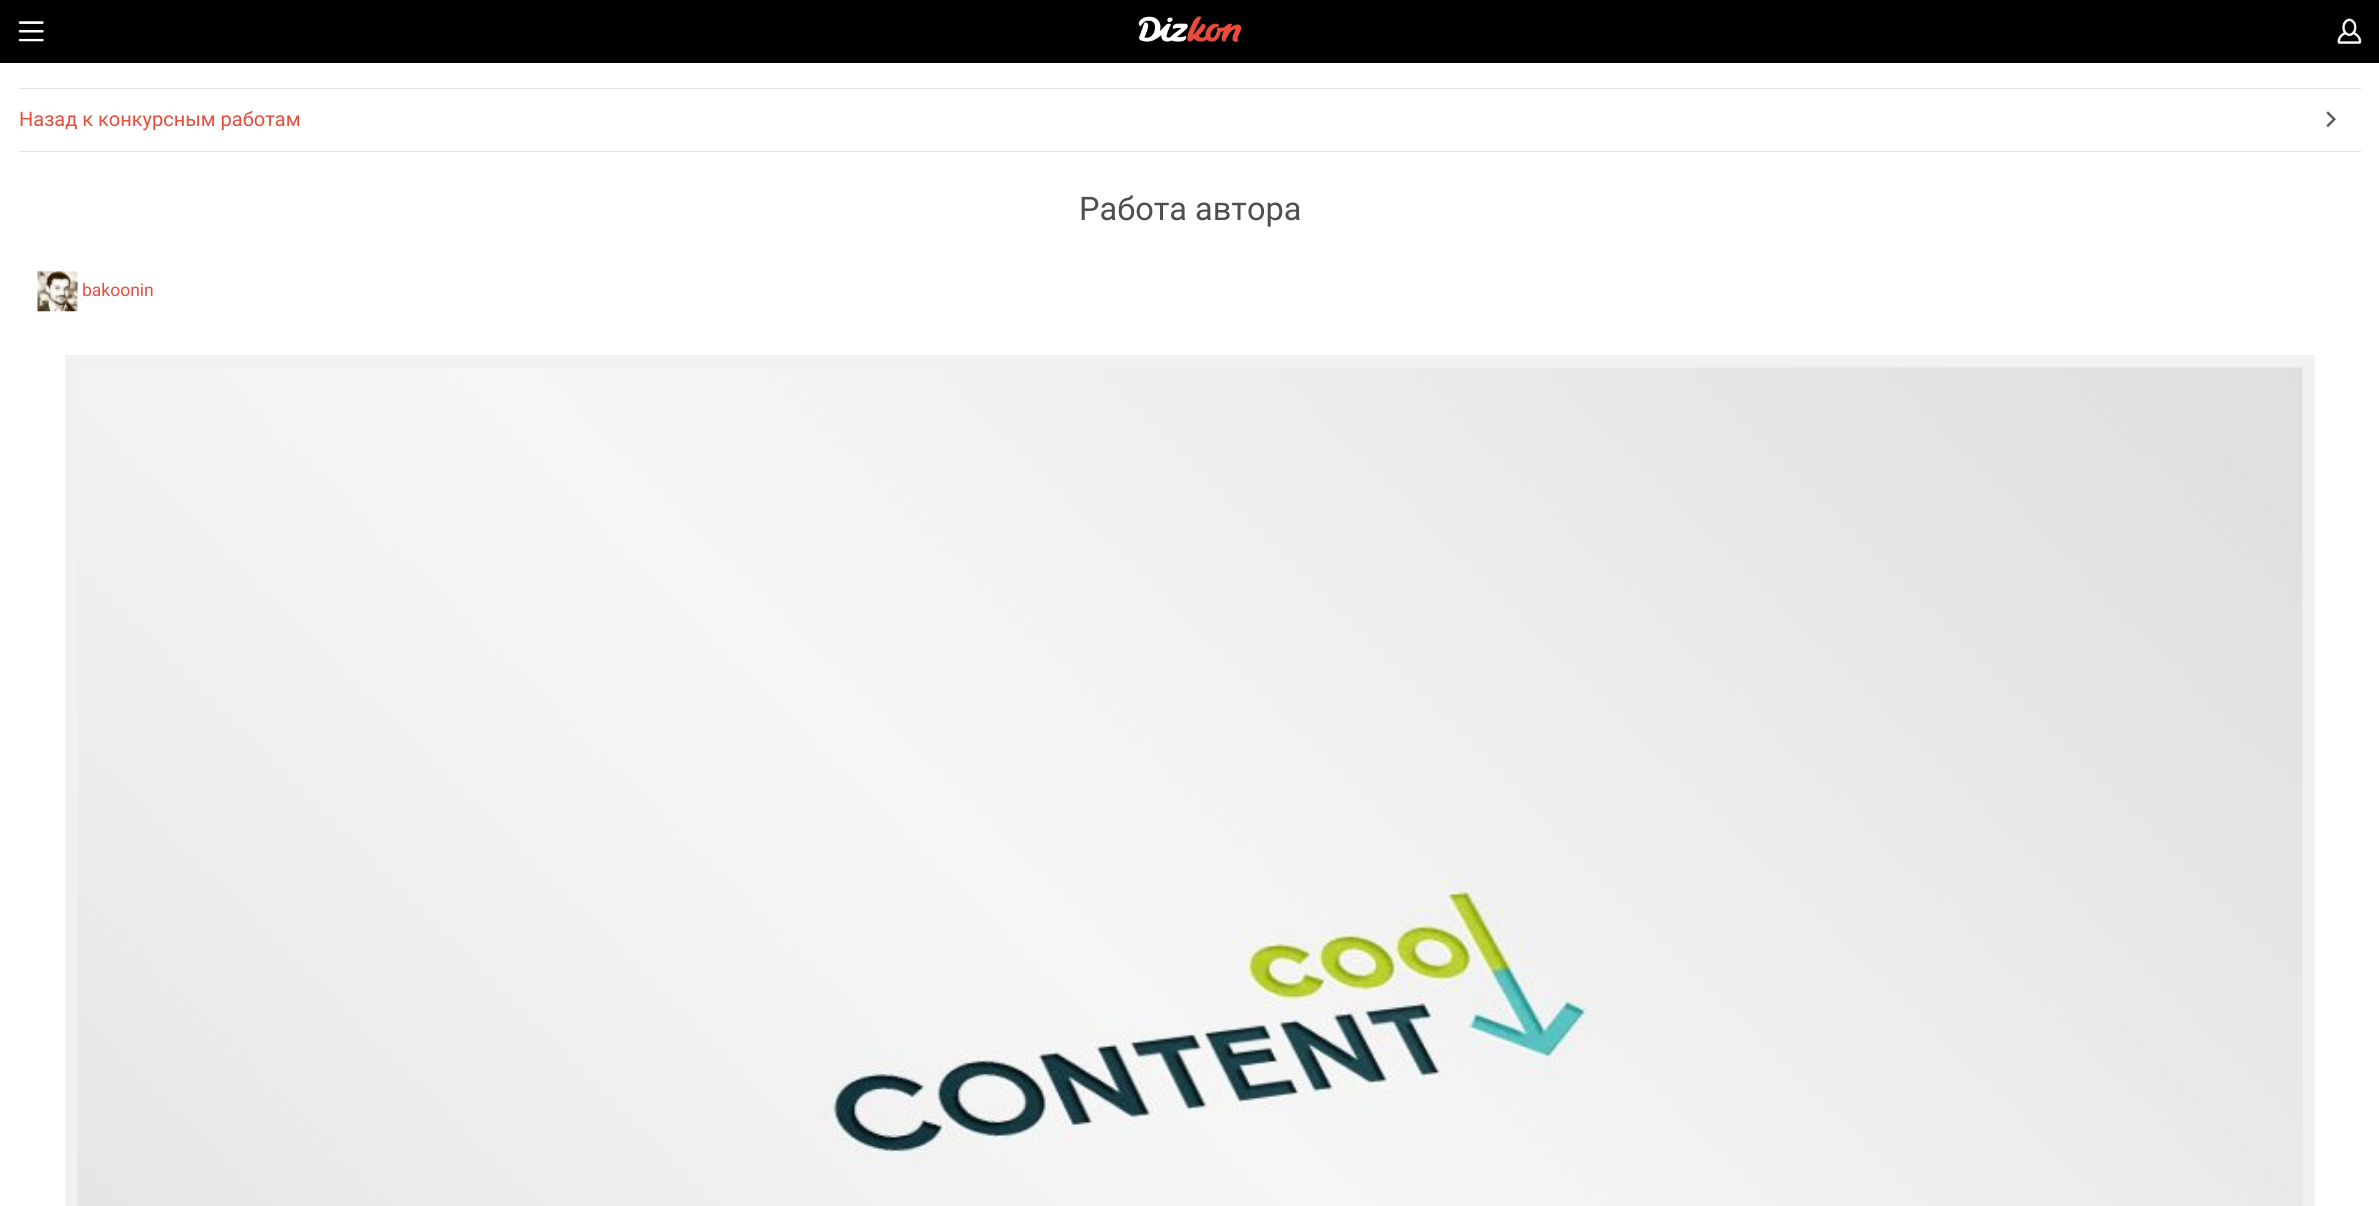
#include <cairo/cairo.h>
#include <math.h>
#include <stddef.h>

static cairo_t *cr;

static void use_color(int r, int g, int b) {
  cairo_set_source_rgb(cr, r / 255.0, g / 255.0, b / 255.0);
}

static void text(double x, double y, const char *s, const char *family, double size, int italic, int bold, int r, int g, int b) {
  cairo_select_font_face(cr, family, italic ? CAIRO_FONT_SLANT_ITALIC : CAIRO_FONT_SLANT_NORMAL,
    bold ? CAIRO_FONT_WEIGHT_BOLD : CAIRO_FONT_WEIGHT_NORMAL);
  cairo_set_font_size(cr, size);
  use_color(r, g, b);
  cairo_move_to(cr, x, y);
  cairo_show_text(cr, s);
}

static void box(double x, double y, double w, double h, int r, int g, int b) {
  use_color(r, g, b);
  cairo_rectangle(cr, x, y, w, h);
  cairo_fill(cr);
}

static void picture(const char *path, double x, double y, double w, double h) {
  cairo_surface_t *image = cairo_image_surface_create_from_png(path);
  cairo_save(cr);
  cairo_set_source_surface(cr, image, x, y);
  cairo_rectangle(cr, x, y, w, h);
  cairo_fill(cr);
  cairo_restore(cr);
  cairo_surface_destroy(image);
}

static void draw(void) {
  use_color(255, 255, 255);
  cairo_paint(cr);
  box(0, 0, 2379, 63, 0, 0, 0);
  picture("img_01.png", 18, 21, 26, 21);
  picture("img_02.png", 1138, 16, 104, 26);
  picture("img_03.png", 2337, 18, 25, 26);
  box(19, 88, 2342, 1, 226, 226, 226);
  box(19, 151, 2342, 1, 226, 226, 226);
  picture("img_04.png", 2326, 111, 11, 17);
  picture("img_05.png", 37, 271, 41, 41);
  box(65, 355, 2250, 851, 241, 241, 241);
  picture("img_06.png", 77, 367, 2226, 839);
  text(19, 126, "Назад к конкурсным работам", "Roboto", 20, 0, 0, 231, 76, 60);
  text(1079, 220, "Работа автора", "Roboto", 32.5, 0, 0, 78, 78, 78);
  text(82, 296, "bakoonin", "Roboto", 17.5, 0, 0, 231, 76, 60);
}

int main(void) {
  cairo_surface_t *surface = cairo_image_surface_create(CAIRO_FORMAT_RGB24, 2379, 1206);
  cr = cairo_create(surface);
  cairo_font_options_t *options = cairo_font_options_create();
  cairo_font_options_set_hint_metrics(options, CAIRO_HINT_METRICS_OFF);
  cairo_font_options_set_hint_style(options, CAIRO_HINT_STYLE_NONE);
  cairo_set_font_options(cr, options);
  cairo_set_miter_limit(cr, 4);
  draw();
  cairo_surface_write_to_png(surface, "out.png");
  cairo_font_options_destroy(options);
  cairo_destroy(cr);
  cairo_surface_destroy(surface);
  return 0;
}
